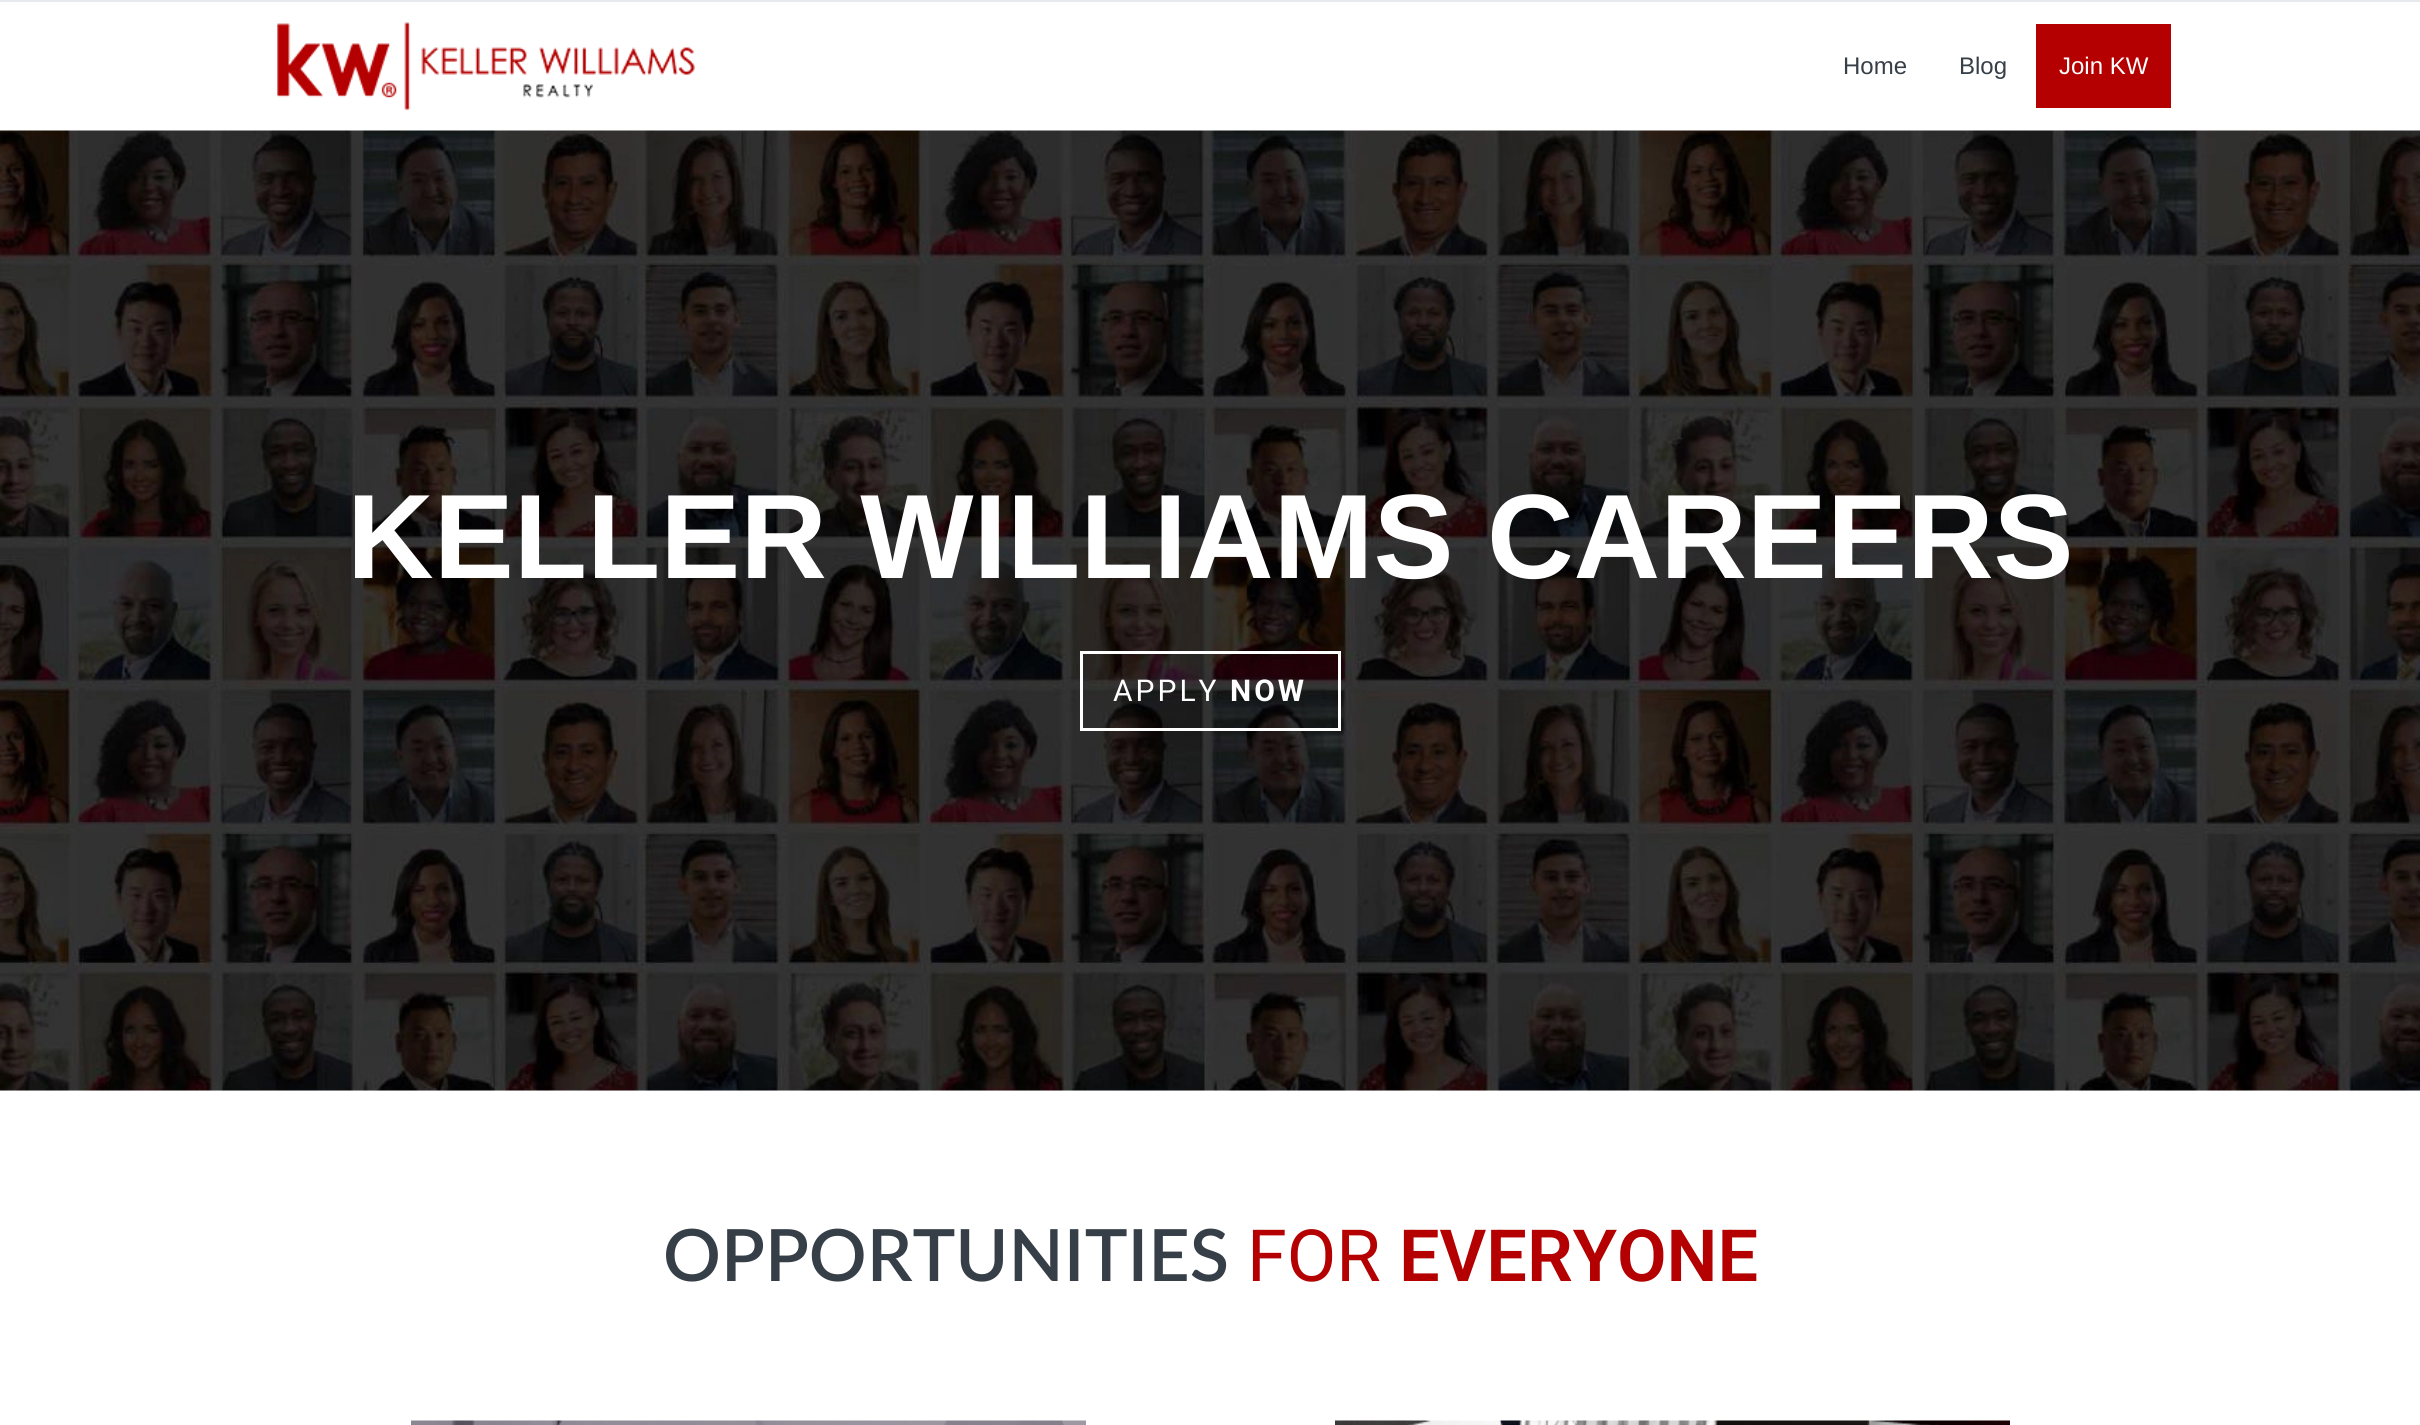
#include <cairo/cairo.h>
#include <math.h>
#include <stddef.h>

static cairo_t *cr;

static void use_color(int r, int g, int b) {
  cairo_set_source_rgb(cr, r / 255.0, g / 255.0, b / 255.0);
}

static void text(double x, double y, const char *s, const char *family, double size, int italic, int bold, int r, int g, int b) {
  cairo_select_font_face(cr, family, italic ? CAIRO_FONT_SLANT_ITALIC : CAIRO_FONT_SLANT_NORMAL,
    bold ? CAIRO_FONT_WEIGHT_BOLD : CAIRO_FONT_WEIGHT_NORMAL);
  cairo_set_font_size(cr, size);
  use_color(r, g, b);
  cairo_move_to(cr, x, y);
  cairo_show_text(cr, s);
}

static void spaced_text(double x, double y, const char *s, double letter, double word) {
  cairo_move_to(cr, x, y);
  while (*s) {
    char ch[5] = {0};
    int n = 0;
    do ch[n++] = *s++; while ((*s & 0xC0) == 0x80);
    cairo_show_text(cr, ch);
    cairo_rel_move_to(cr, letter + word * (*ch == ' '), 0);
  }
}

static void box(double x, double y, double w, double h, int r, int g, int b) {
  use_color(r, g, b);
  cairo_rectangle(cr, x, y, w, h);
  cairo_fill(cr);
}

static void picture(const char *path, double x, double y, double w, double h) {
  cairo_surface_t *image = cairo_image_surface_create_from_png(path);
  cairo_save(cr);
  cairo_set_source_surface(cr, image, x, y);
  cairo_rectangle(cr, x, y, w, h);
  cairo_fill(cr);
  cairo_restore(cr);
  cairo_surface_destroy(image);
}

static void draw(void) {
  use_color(245, 245, 245);
  cairo_paint(cr);
  box(0, 2, 2420, 129, 255, 255, 255);
  box(0, 0, 2420, 2, 230, 233, 237);
  picture("img_01.png", 277, 22, 418, 88);
  box(2036, 24, 135, 84, 180, 0, 0);
  picture("img_02.png", 0, 130, 2420, 961);
  cairo_rectangle(cr, 1081.5, 652.5, 258, 77);
  use_color(255, 255, 255);
  cairo_set_line_width(cr, 3);
  cairo_stroke(cr);
  box(0, 1091, 2420, 334, 255, 255, 255);
  picture("img_03.png", 411, 1420, 675, 5);
  picture("img_04.png", 1335, 1420, 675, 5);
  text(1843, 74, "Home", "Liberation Sans", 24, 0, 0, 54, 63, 72);
  text(1959, 74, "Blog", "Liberation Sans", 24, 0, 0, 54, 63, 72);
  text(2059, 74, "Join KW", "Liberation Sans", 24, 0, 0, 255, 255, 255);
  text(347, 578, "KELLER WILLIAMS CAREERS", "Liberation Sans", 120, 0, 1, 255, 255, 255);
  cairo_select_font_face(cr, "Roboto", CAIRO_FONT_SLANT_NORMAL, CAIRO_FONT_WEIGHT_NORMAL);
  cairo_set_font_size(cr, 30);
  spaced_text(1113, 701, "APPLY", 3, 0);
  cairo_select_font_face(cr, "Roboto", CAIRO_FONT_SLANT_NORMAL, CAIRO_FONT_WEIGHT_BOLD);
  spaced_text(1230, 701, "NOW", 3, 0);
  text(663, 1281, "OPPORTUNITIES", "Lato SemiBold", 72, 0, 0, 54, 63, 72);
  text(1247, 1281, "FOR", "Roboto", 72, 0, 0, 180, 0, 0);
  text(1399, 1281, "EVERYONE", "Roboto SemiBold", 72, 0, 0, 180, 0, 0);
}

int main(void) {
  cairo_surface_t *surface = cairo_image_surface_create(CAIRO_FORMAT_RGB24, 2420, 1425);
  cr = cairo_create(surface);
  cairo_font_options_t *options = cairo_font_options_create();
  cairo_font_options_set_hint_metrics(options, CAIRO_HINT_METRICS_OFF);
  cairo_font_options_set_hint_style(options, CAIRO_HINT_STYLE_NONE);
  cairo_set_font_options(cr, options);
  cairo_set_miter_limit(cr, 4);
  draw();
  cairo_surface_write_to_png(surface, "out.png");
  cairo_font_options_destroy(options);
  cairo_destroy(cr);
  cairo_surface_destroy(surface);
  return 0;
}
